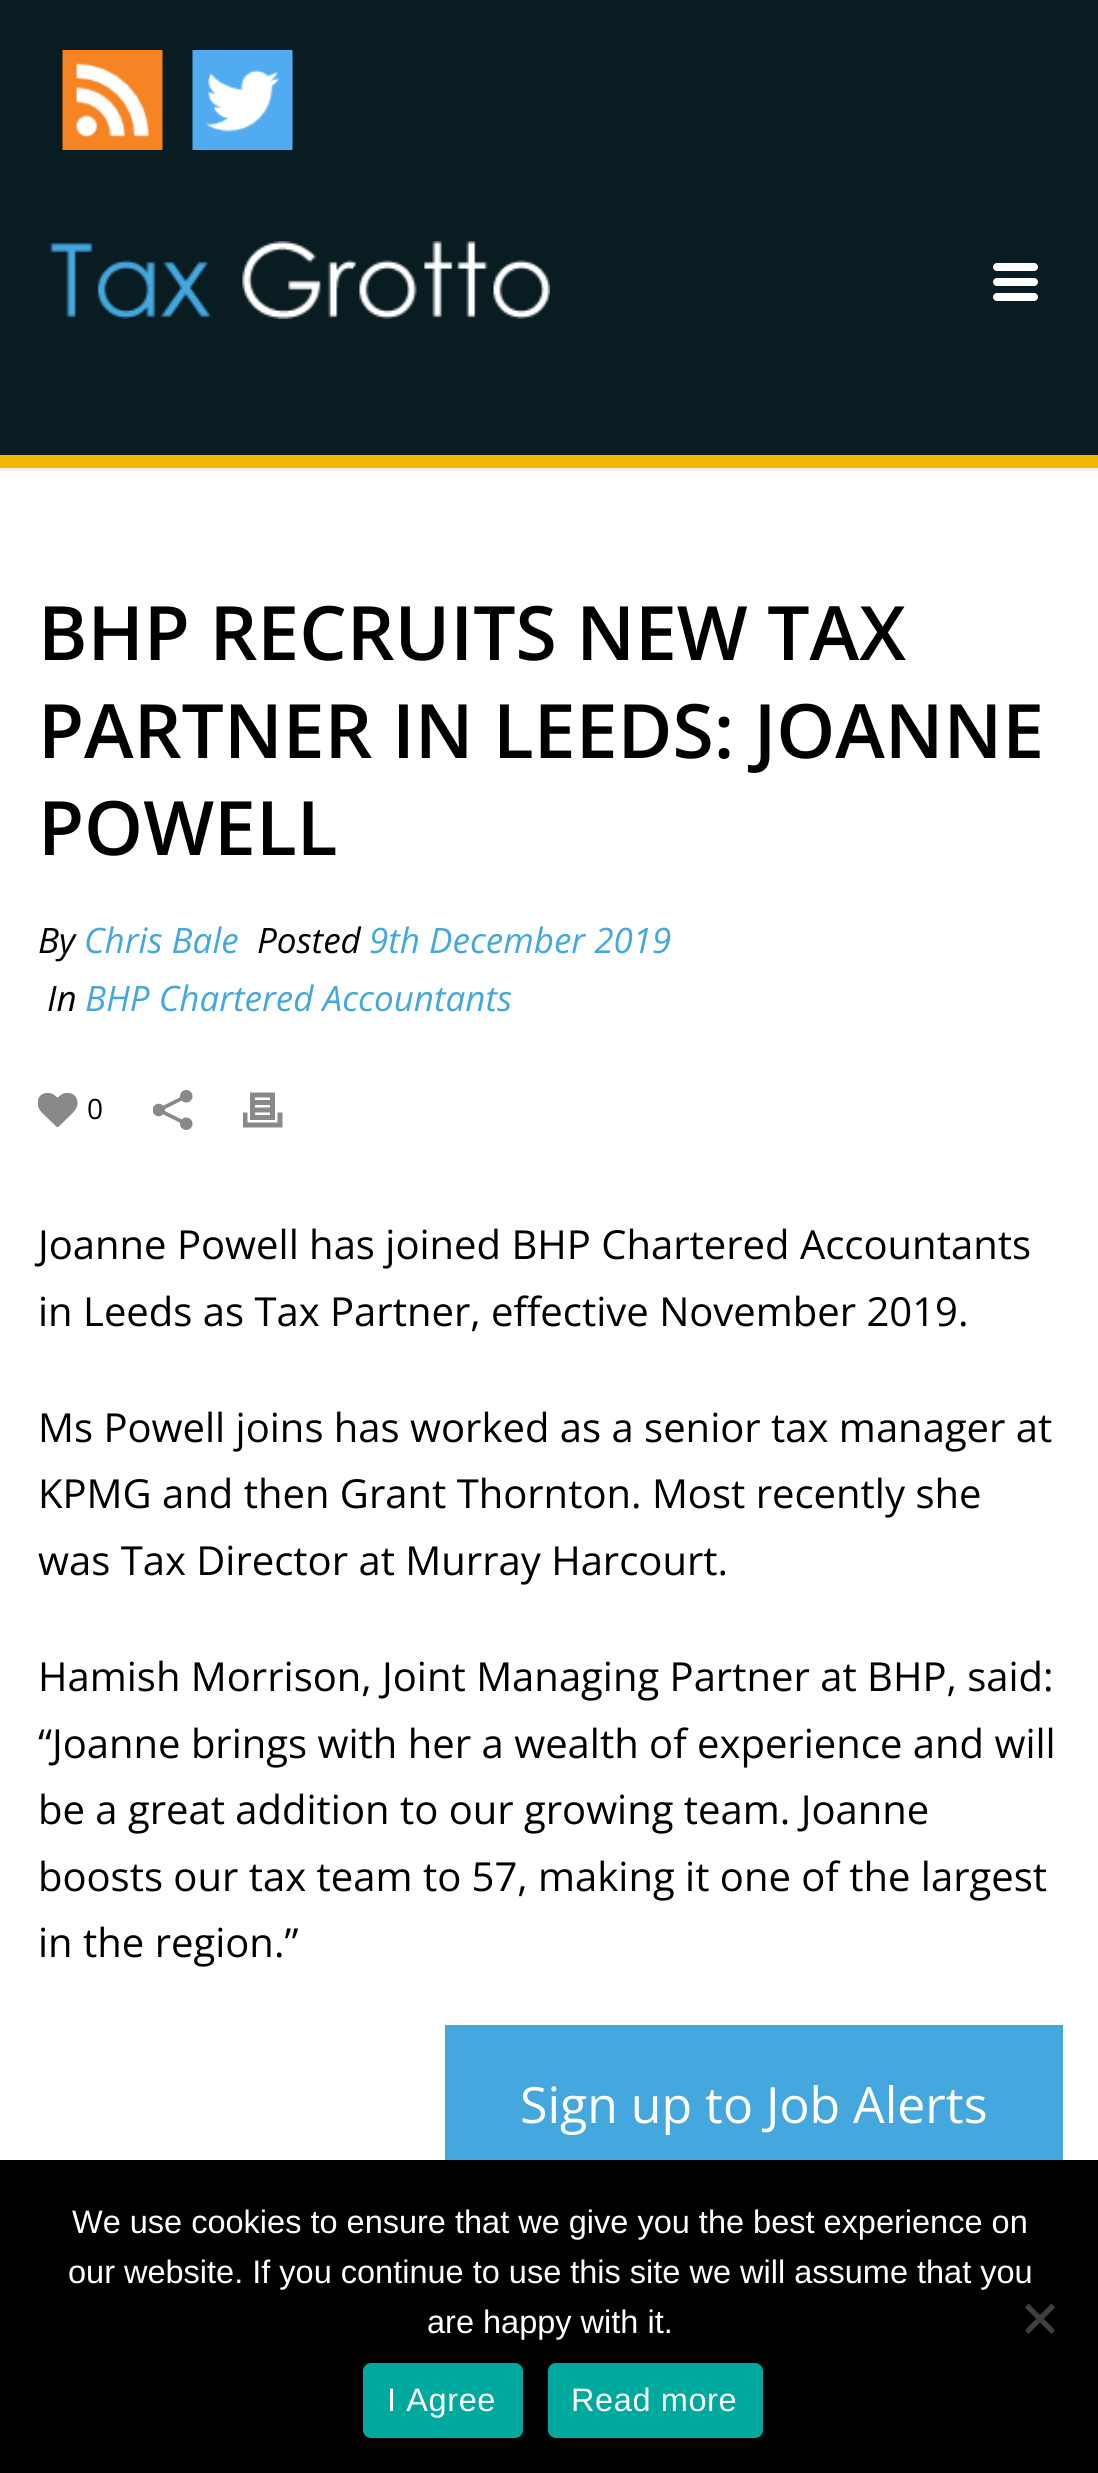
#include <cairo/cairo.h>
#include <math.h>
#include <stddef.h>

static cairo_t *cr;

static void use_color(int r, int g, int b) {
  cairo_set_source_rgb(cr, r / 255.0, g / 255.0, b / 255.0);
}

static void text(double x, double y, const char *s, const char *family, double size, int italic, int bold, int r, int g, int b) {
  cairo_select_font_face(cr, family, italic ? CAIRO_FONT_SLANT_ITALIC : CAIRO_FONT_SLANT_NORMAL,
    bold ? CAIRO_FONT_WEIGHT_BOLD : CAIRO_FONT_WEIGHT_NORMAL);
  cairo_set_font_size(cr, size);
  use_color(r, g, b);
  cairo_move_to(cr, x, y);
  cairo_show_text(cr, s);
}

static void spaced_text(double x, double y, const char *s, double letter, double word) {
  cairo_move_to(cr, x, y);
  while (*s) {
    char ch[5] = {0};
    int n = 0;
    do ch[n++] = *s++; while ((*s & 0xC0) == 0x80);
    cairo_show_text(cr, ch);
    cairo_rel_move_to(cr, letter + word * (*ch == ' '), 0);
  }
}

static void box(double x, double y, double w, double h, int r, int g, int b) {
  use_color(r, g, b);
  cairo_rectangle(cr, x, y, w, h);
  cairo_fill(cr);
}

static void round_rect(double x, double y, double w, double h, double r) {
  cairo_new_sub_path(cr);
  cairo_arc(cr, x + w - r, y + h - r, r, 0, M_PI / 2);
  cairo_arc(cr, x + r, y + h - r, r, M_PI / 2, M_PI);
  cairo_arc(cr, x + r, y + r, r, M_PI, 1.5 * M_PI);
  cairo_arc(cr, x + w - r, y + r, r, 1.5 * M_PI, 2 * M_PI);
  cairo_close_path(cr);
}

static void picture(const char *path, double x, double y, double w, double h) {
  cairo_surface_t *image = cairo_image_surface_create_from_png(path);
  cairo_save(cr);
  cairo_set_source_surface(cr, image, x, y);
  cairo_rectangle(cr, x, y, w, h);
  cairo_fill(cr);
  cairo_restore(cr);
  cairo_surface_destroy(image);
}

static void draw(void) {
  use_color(255, 255, 255);
  cairo_paint(cr);
  box(0, 468, 1098, 3, 237, 237, 237);
  box(0, 0, 1098, 455, 9, 28, 34);
  box(0, 455, 1098, 13, 240, 182, 0);
  picture("img_01.png", 50, 241, 500, 78);
  use_color(255, 255, 255);
  round_rect(993, 263, 45, 8, 4);
  cairo_fill(cr);
  round_rect(993, 278, 45, 8, 4);
  cairo_fill(cr);
  round_rect(993, 293, 45, 8, 4);
  cairo_fill(cr);
  picture("img_02.png", 62, 50, 101, 100);
  picture("img_03.png", 192, 50, 101, 100);
  picture("img_04.png", 38, 1092, 40, 36);
  picture("img_05.png", 153, 1090, 40, 40);
  picture("img_06.png", 243, 1092, 40, 36);
  box(445, 2025, 618, 135, 68, 167, 222);
  box(0, 2160, 1098, 313, 0, 0, 0);
  use_color(64, 64, 64);
  cairo_new_path(cr);
  cairo_move_to(cr, 1051.5, 2303.5);
  cairo_line_to(cr, 1055, 2307.5);
  cairo_line_to(cr, 1028.5, 2334);
  cairo_line_to(cr, 1025, 2330);
  cairo_close_path(cr);
  cairo_fill(cr);
  cairo_new_path(cr);
  cairo_move_to(cr, 1025, 2307.5);
  cairo_line_to(cr, 1028.5, 2303.5);
  cairo_line_to(cr, 1055, 2330);
  cairo_line_to(cr, 1051.5, 2334);
  cairo_close_path(cr);
  cairo_fill(cr);
  use_color(0, 169, 157);
  round_rect(363, 2363, 160, 75, 8);
  cairo_fill(cr);
  round_rect(548, 2363, 215, 75, 8);
  cairo_fill(cr);
  text(38, 660, "BHP RECRUITS NEW TAX", "Open Sans SemiBold", 75, 0, 0, 0, 0, 0);
  text(38, 758, "PARTNER IN LEEDS: JOANNE", "Open Sans SemiBold", 75, 0, 0, 0, 0, 0);
  text(38, 855, "POWELL", "Open Sans SemiBold", 75, 0, 0, 0, 0, 0);
  text(38, 953, "By", "Open Sans", 35, 1, 0, 0, 0, 0);
  text(84, 953, "Chris Bale", "Open Sans", 35, 1, 0, 68, 167, 222);
  text(257, 953, "Posted", "Open Sans", 35, 1, 0, 0, 0, 0);
  text(369, 953, "9th December 2019", "Open Sans", 35, 1, 0, 68, 167, 222);
  text(47, 1011, "In", "Open Sans", 35, 1, 0, 0, 0, 0);
  text(85, 1011, "BHP Chartered Accountants", "Open Sans", 35, 1, 0, 68, 167, 222);
  text(87, 1119, "0", "Open Sans", 28, 0, 0, 0, 0, 0);
  text(38, 1259, "Joanne Powell has joined BHP Chartered Accountants", "Open Sans", 40, 0, 0, 0, 0, 0);
  text(38, 1326, "in Leeds as Tax Partner, effective November 2019.", "Open Sans", 40, 0, 0, 0, 0, 0);
  text(38, 1442, "Ms Powell joins has worked as a senior tax manager at", "Open Sans", 40, 0, 0, 0, 0, 0);
  text(38, 1508, "KPMG and then Grant Thornton. Most recently she", "Open Sans", 40, 0, 0, 0, 0, 0);
  text(38, 1575, "was Tax Director at Murray Harcourt.", "Open Sans", 40, 0, 0, 0, 0, 0);
  text(38, 1691, "Hamish Morrison, Joint Managing Partner at BHP, said:", "Open Sans", 40, 0, 0, 0, 0, 0);
  text(38, 1758, "“Joanne brings with her a wealth of experience and will", "Open Sans", 40, 0, 0, 0, 0, 0);
  text(38, 1824, "be a great addition to our growing team. Joanne", "Open Sans", 40, 0, 0, 0, 0, 0);
  text(38, 1891, "boosts our tax team to 57, making it one of the largest", "Open Sans", 40, 0, 0, 0, 0, 0);
  text(38, 1957, "in the region.”", "Open Sans", 40, 0, 0, 0, 0, 0);
  text(520, 2123, "Sign up to Job Alerts", "Open Sans", 50, 0, 0, 255, 255, 255);
  text(72, 2233, "We use cookies to ensure that we give you the best experience on", "Liberation Sans", 32.5, 0, 0, 255, 255, 255);
  text(68, 2283, "our website. If you continue to use this site we will assume that you", "Liberation Sans", 32.5, 0, 0, 255, 255, 255);
  text(427, 2333, "are happy with it.", "Liberation Sans", 32.5, 0, 0, 255, 255, 255);
  spaced_text(387, 2411, "I Agree", 0.6, 0);
  spaced_text(571, 2411, "Read more", 0.6, 0);
}

int main(void) {
  cairo_surface_t *surface = cairo_image_surface_create(CAIRO_FORMAT_RGB24, 1098, 2473);
  cr = cairo_create(surface);
  cairo_font_options_t *options = cairo_font_options_create();
  cairo_font_options_set_hint_metrics(options, CAIRO_HINT_METRICS_OFF);
  cairo_font_options_set_hint_style(options, CAIRO_HINT_STYLE_NONE);
  cairo_set_font_options(cr, options);
  cairo_set_miter_limit(cr, 4);
  draw();
  cairo_surface_write_to_png(surface, "out.png");
  cairo_font_options_destroy(options);
  cairo_destroy(cr);
  cairo_surface_destroy(surface);
  return 0;
}
